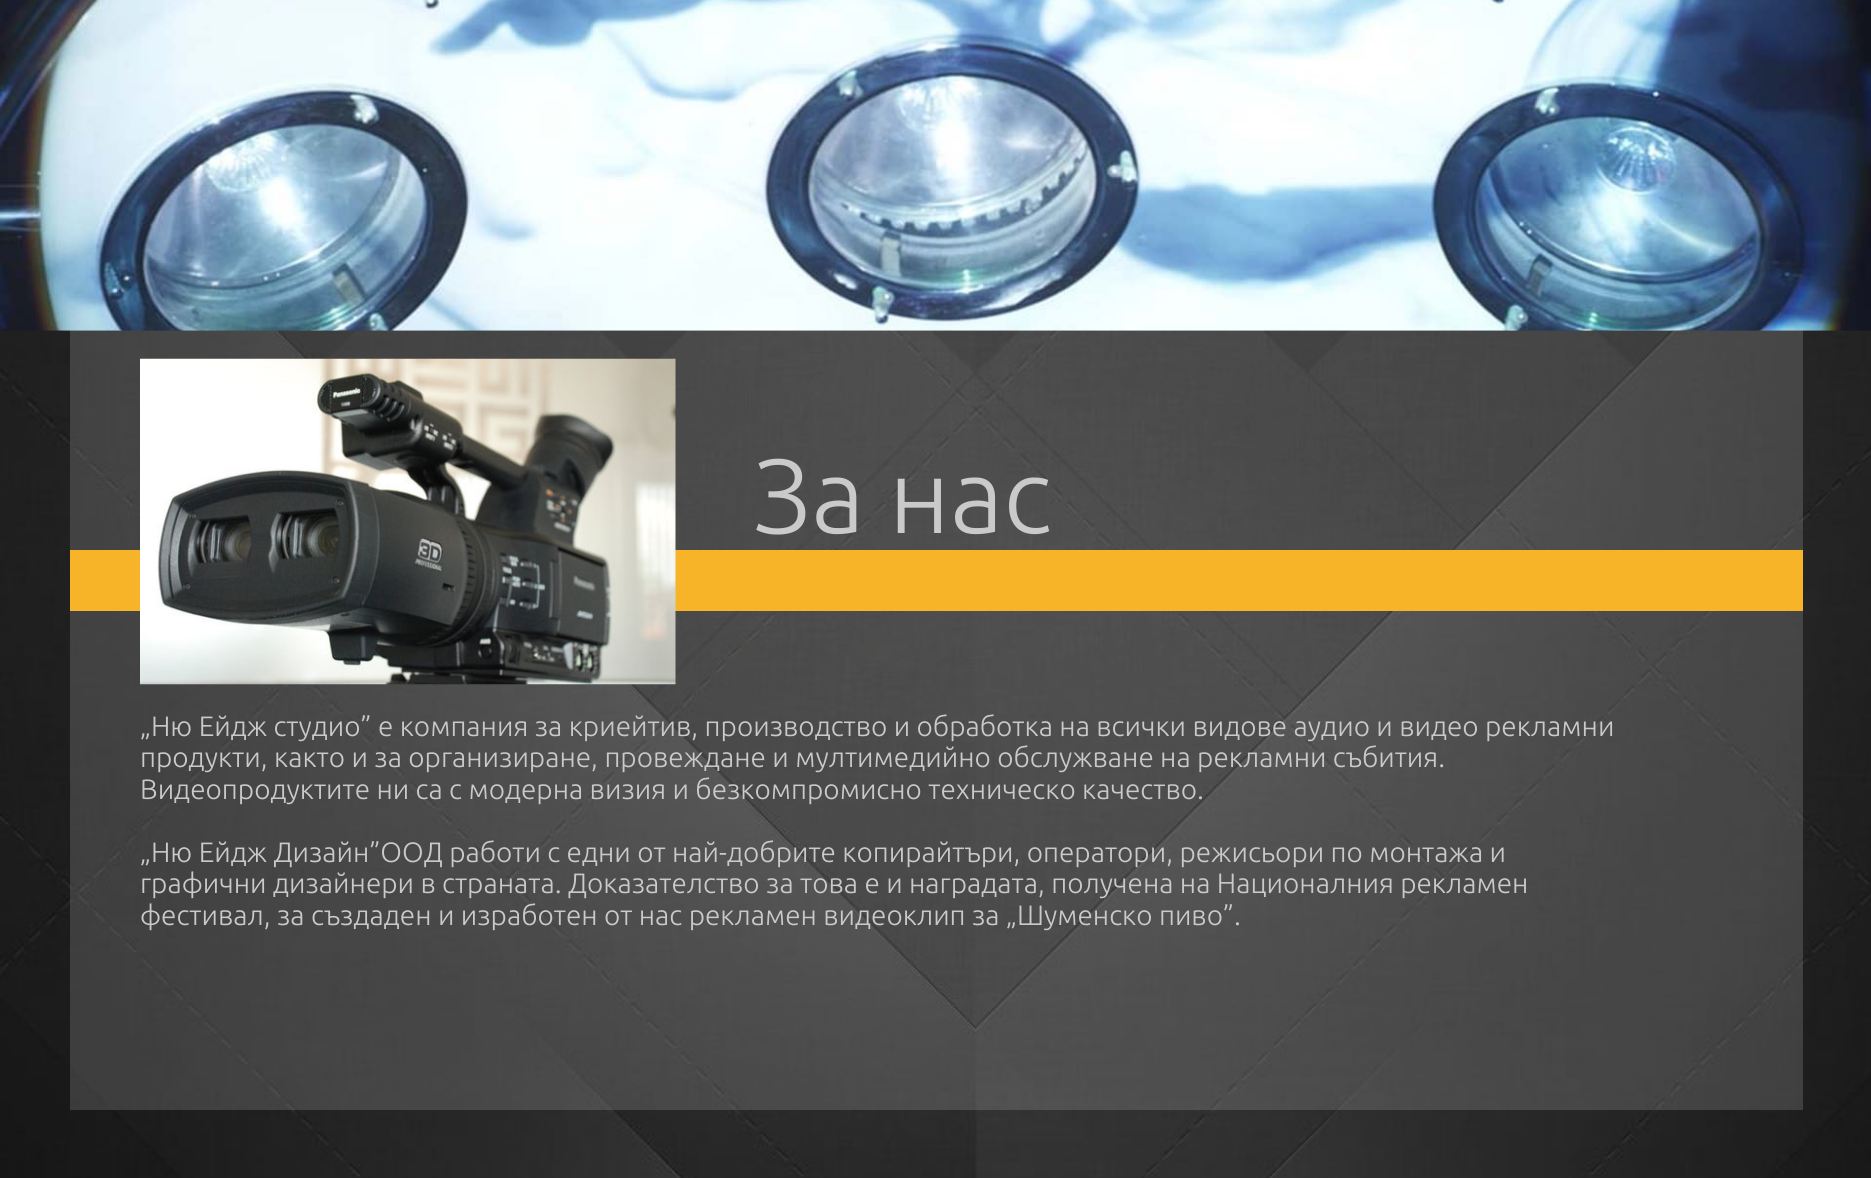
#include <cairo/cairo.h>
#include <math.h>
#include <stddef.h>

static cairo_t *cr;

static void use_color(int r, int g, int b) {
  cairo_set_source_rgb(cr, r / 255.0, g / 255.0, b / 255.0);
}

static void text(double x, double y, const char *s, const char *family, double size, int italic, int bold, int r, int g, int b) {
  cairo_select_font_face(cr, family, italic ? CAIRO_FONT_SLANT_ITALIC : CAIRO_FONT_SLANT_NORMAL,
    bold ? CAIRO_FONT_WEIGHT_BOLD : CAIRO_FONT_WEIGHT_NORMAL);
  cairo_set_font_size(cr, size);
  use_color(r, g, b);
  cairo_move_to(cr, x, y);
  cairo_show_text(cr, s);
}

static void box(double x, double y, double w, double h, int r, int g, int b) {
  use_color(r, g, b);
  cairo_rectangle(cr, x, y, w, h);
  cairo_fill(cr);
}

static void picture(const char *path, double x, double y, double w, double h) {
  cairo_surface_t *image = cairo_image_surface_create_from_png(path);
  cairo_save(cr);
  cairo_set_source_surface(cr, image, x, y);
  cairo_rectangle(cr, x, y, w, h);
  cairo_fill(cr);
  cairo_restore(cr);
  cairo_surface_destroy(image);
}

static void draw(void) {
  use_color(255, 255, 255);
  cairo_paint(cr);
  picture("img_01.png", 0, 330, 1871, 848);
  cairo_set_source_rgba(cr, 0.792, 0.792, 0.792, 0.2);
  cairo_rectangle(cr, 70, 330, 1733, 780);
  cairo_fill(cr);
  picture("img_02.png", 0, 0, 1871, 331);
  box(70, 550, 1733, 61, 247, 180, 40);
  picture("img_03.png", 140, 358, 536, 327);
  text(753, 533, "За нас", "Ubuntu Light", 105, 0, 0, 202, 202, 202);
  text(140, 736, "„Ню Ейдж студио” е компания за криейтив, производство и обработка на всички видове аудио и видео рекламни", "Ubuntu Light", 28, 0, 0, 202, 202, 202);
  text(140, 767, "продукти, както и за организиране, провеждане и мултимедийно обслужване на рекламни събития.", "Ubuntu Light", 28, 0, 0, 202, 202, 202);
  text(140, 799, "Видеопродуктите ни са с модерна визия и безкомпромисно техническо качество.", "Ubuntu Light", 28, 0, 0, 202, 202, 202);
  text(140, 862, "„Ню Ейдж Дизайн”ООД работи с едни от най-добрите копирайтъри, оператори, режисьори по монтажа и", "Ubuntu Light", 28, 0, 0, 202, 202, 202);
  text(140, 893, "графични дизайнери в страната. Доказателство за това е и наградата, получена на Националния рекламен", "Ubuntu Light", 28, 0, 0, 202, 202, 202);
  text(140, 925, "фестивал, за създаден и изработен от нас рекламен видеоклип за „Шуменско пиво”.", "Ubuntu Light", 28, 0, 0, 202, 202, 202);
}

int main(void) {
  cairo_surface_t *surface = cairo_image_surface_create(CAIRO_FORMAT_RGB24, 1871, 1178);
  cr = cairo_create(surface);
  cairo_font_options_t *options = cairo_font_options_create();
  cairo_font_options_set_hint_metrics(options, CAIRO_HINT_METRICS_OFF);
  cairo_font_options_set_hint_style(options, CAIRO_HINT_STYLE_NONE);
  cairo_set_font_options(cr, options);
  cairo_set_miter_limit(cr, 4);
  draw();
  cairo_surface_write_to_png(surface, "out.png");
  cairo_font_options_destroy(options);
  cairo_destroy(cr);
  cairo_surface_destroy(surface);
  return 0;
}
